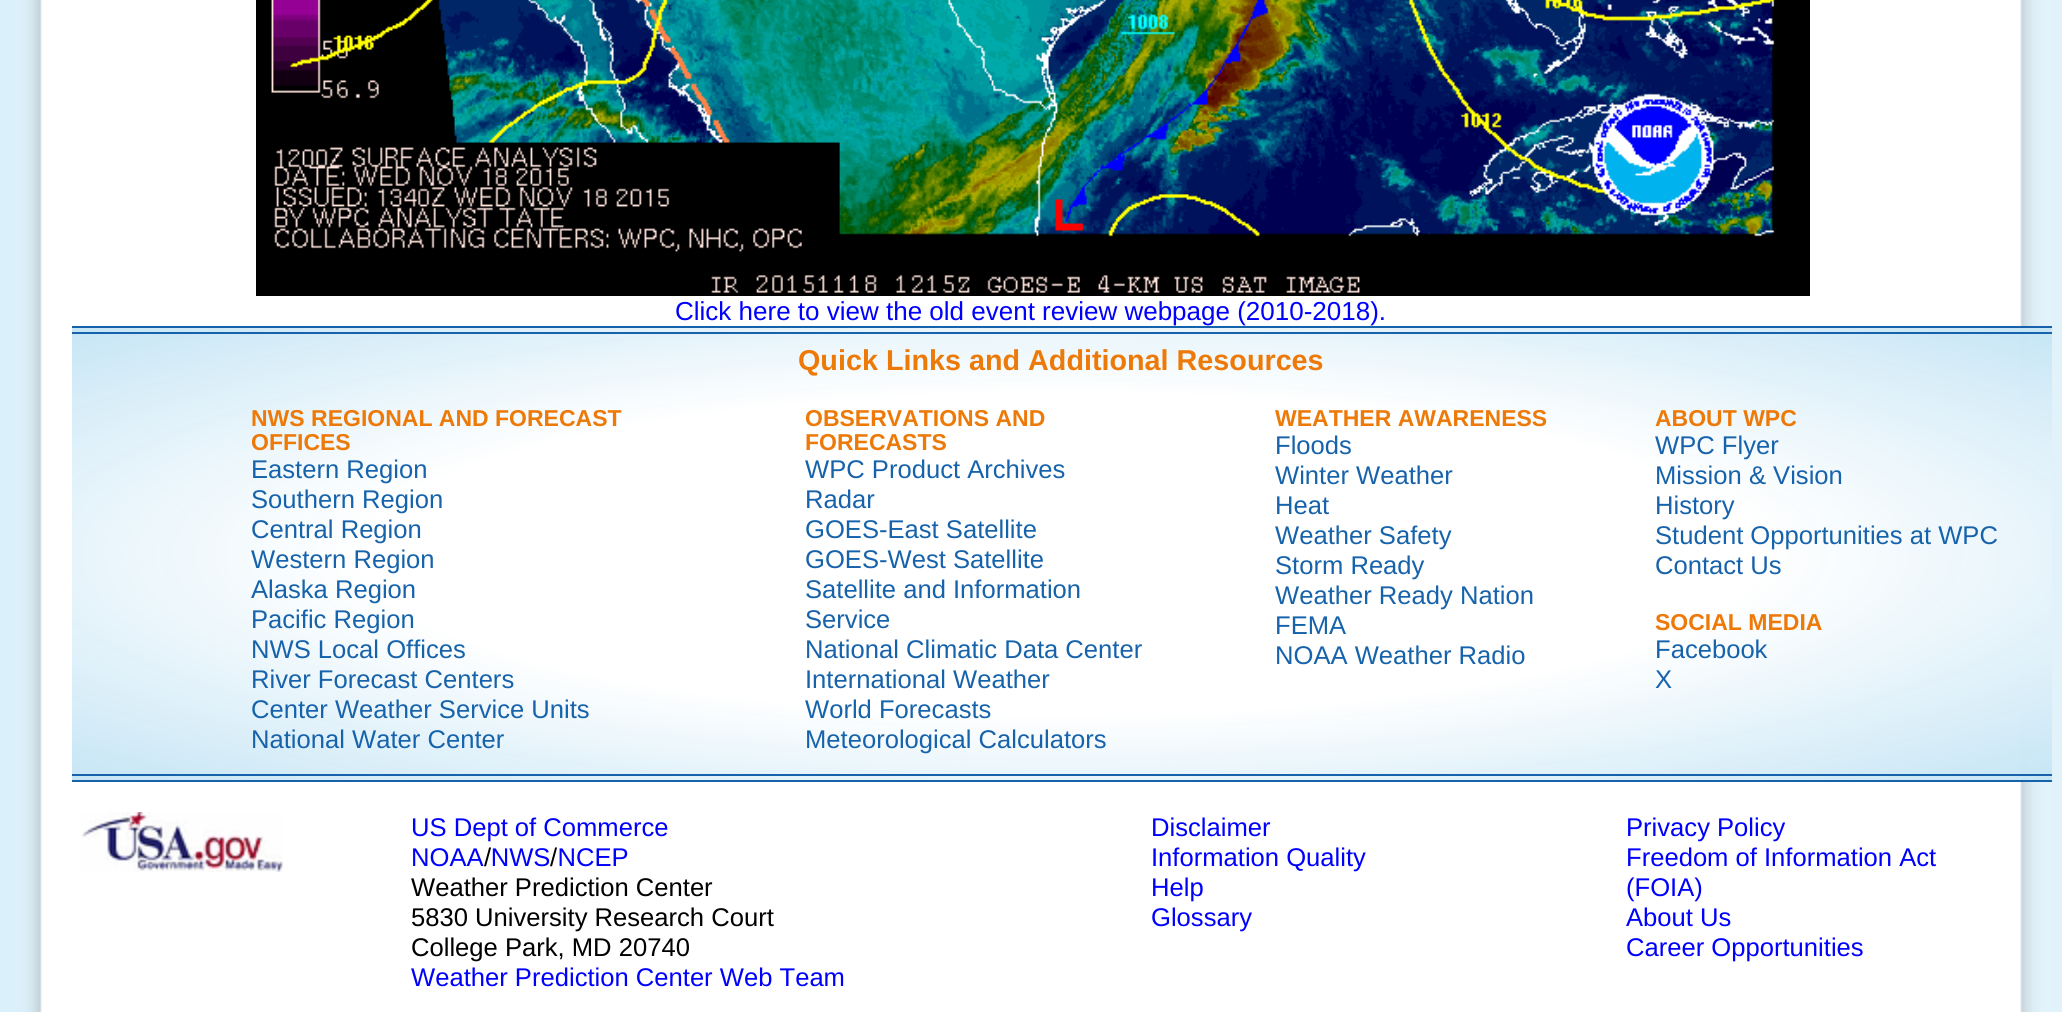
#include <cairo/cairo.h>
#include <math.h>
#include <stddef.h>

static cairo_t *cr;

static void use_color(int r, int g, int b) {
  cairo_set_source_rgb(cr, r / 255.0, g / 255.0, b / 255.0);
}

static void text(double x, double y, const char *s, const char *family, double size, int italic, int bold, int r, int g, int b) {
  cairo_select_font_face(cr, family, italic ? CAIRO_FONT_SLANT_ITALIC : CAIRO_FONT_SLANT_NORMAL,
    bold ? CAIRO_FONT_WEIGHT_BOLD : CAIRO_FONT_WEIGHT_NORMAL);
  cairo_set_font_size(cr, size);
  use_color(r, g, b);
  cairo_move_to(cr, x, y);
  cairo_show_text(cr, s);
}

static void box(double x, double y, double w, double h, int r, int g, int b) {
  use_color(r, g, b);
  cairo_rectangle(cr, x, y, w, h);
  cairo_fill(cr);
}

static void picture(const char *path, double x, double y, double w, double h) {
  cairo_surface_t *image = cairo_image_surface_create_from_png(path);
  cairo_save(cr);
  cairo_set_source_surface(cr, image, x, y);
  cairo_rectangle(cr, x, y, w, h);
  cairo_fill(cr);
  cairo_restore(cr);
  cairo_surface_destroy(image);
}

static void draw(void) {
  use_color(255, 255, 255);
  cairo_paint(cr);
  picture("img_01.png", 0, 0, 2062, 1012);
  picture("img_02.png", 256, 0, 1554, 296);
  box(72, 326, 1980, 2, 23, 99, 171);
  box(72, 332, 1980, 2, 23, 99, 171);
  box(72, 774, 1980, 2, 23, 99, 171);
  box(72, 780, 1980, 2, 23, 99, 171);
  picture("img_03.png", 81, 812, 202, 60);
  text(675, 320, "Click here to view the old event review webpage (2010-2018).", "Liberation Sans", 26, 0, 0, 0, 0, 255);
  text(798, 370, "Quick Links and Additional Resources", "Liberation Sans", 28.75, 0, 1, 237, 122, 8);
  text(251, 426, "NWS REGIONAL AND FORECAST", "Liberation Sans", 23, 0, 1, 237, 122, 8);
  text(251, 450, "OFFICES", "Liberation Sans", 23, 0, 1, 237, 122, 8);
  text(251, 478, "Eastern Region", "Liberation Sans", 25.6, 0, 0, 23, 99, 171);
  text(251, 508, "Southern Region", "Liberation Sans", 25.6, 0, 0, 23, 99, 171);
  text(251, 538, "Central Region", "Liberation Sans", 25.6, 0, 0, 23, 99, 171);
  text(251, 568, "Western Region", "Liberation Sans", 25.6, 0, 0, 23, 99, 171);
  text(251, 598, "Alaska Region", "Liberation Sans", 25.6, 0, 0, 23, 99, 171);
  text(251, 628, "Pacific Region", "Liberation Sans", 25.6, 0, 0, 23, 99, 171);
  text(251, 658, "NWS Local Offices", "Liberation Sans", 25.6, 0, 0, 23, 99, 171);
  text(251, 688, "River Forecast Centers", "Liberation Sans", 25.6, 0, 0, 23, 99, 171);
  text(251, 718, "Center Weather Service Units", "Liberation Sans", 25.6, 0, 0, 23, 99, 171);
  text(251, 748, "National Water Center", "Liberation Sans", 25.6, 0, 0, 23, 99, 171);
  text(805, 426, "OBSERVATIONS AND", "Liberation Sans", 23, 0, 1, 237, 122, 8);
  text(805, 450, "FORECASTS", "Liberation Sans", 23, 0, 1, 237, 122, 8);
  text(805, 478, "WPC Product Archives", "Liberation Sans", 25.6, 0, 0, 23, 99, 171);
  text(805, 508, "Radar", "Liberation Sans", 25.6, 0, 0, 23, 99, 171);
  text(805, 538, "GOES-East Satellite", "Liberation Sans", 25.6, 0, 0, 23, 99, 171);
  text(805, 568, "GOES-West Satellite", "Liberation Sans", 25.6, 0, 0, 23, 99, 171);
  text(805, 598, "Satellite and Information", "Liberation Sans", 25.6, 0, 0, 23, 99, 171);
  text(805, 628, "Service", "Liberation Sans", 25.6, 0, 0, 23, 99, 171);
  text(805, 658, "National Climatic Data Center", "Liberation Sans", 25.6, 0, 0, 23, 99, 171);
  text(805, 688, "International Weather", "Liberation Sans", 25.6, 0, 0, 23, 99, 171);
  text(805, 718, "World Forecasts", "Liberation Sans", 25.6, 0, 0, 23, 99, 171);
  text(805, 748, "Meteorological Calculators", "Liberation Sans", 25.6, 0, 0, 23, 99, 171);
  text(1275, 426, "WEATHER AWARENESS", "Liberation Sans", 23, 0, 1, 237, 122, 8);
  text(1275, 454, "Floods", "Liberation Sans", 25.6, 0, 0, 23, 99, 171);
  text(1275, 484, "Winter Weather", "Liberation Sans", 25.6, 0, 0, 23, 99, 171);
  text(1275, 514, "Heat", "Liberation Sans", 25.6, 0, 0, 23, 99, 171);
  text(1275, 544, "Weather Safety", "Liberation Sans", 25.6, 0, 0, 23, 99, 171);
  text(1275, 574, "Storm Ready", "Liberation Sans", 25.6, 0, 0, 23, 99, 171);
  text(1275, 604, "Weather Ready Nation", "Liberation Sans", 25.6, 0, 0, 23, 99, 171);
  text(1275, 634, "FEMA", "Liberation Sans", 25.6, 0, 0, 23, 99, 171);
  text(1275, 664, "NOAA Weather Radio", "Liberation Sans", 25.6, 0, 0, 23, 99, 171);
  text(1655, 426, "ABOUT WPC", "Liberation Sans", 23, 0, 1, 237, 122, 8);
  text(1655, 454, "WPC Flyer", "Liberation Sans", 25.6, 0, 0, 23, 99, 171);
  text(1655, 484, "Mission & Vision", "Liberation Sans", 25.6, 0, 0, 23, 99, 171);
  text(1655, 514, "History", "Liberation Sans", 25.6, 0, 0, 23, 99, 171);
  text(1655, 544, "Student Opportunities at WPC", "Liberation Sans", 25.6, 0, 0, 23, 99, 171);
  text(1655, 574, "Contact Us", "Liberation Sans", 25.6, 0, 0, 23, 99, 171);
  text(1655, 630, "SOCIAL MEDIA", "Liberation Sans", 23, 0, 1, 237, 122, 8);
  text(1655, 658, "Facebook", "Liberation Sans", 25.6, 0, 0, 23, 99, 171);
  text(1655, 688, "X", "Liberation Sans", 25.6, 0, 0, 23, 99, 171);
  text(411, 836, "US Dept of Commerce", "Liberation Sans", 25.6, 0, 0, 0, 0, 255);
  text(411, 866, "NOAA NWS NCEP", "Liberation Sans", 25.6, 0, 0, 0, 0, 255);
  text(550, 866, "/", "Liberation Sans", 25.6, 0, 0, 0, 0, 0);
  text(484, 866, "/", "Liberation Sans", 25.6, 0, 0, 0, 0, 0);
  text(411, 896, "Weather Prediction Center", "Liberation Sans", 25.6, 0, 0, 0, 0, 0);
  text(411, 926, "5830 University Research Court", "Liberation Sans", 25.6, 0, 0, 0, 0, 0);
  text(411, 956, "College Park, MD 20740", "Liberation Sans", 25.6, 0, 0, 0, 0, 0);
  text(411, 986, "Weather Prediction Center Web Team", "Liberation Sans", 25.6, 0, 0, 0, 0, 255);
  text(1151, 836, "Disclaimer", "Liberation Sans", 25.6, 0, 0, 0, 0, 255);
  text(1151, 866, "Information Quality", "Liberation Sans", 25.6, 0, 0, 0, 0, 255);
  text(1151, 896, "Help", "Liberation Sans", 25.6, 0, 0, 0, 0, 255);
  text(1151, 926, "Glossary", "Liberation Sans", 25.6, 0, 0, 0, 0, 255);
  text(1626, 836, "Privacy Policy", "Liberation Sans", 25.6, 0, 0, 0, 0, 255);
  text(1626, 866, "Freedom of Information Act", "Liberation Sans", 25.6, 0, 0, 0, 0, 255);
  text(1626, 896, "(FOIA)", "Liberation Sans", 25.6, 0, 0, 0, 0, 255);
  text(1626, 926, "About Us", "Liberation Sans", 25.6, 0, 0, 0, 0, 255);
  text(1626, 956, "Career Opportunities", "Liberation Sans", 25.6, 0, 0, 0, 0, 255);
}

int main(void) {
  cairo_surface_t *surface = cairo_image_surface_create(CAIRO_FORMAT_RGB24, 2062, 1012);
  cr = cairo_create(surface);
  cairo_font_options_t *options = cairo_font_options_create();
  cairo_font_options_set_hint_metrics(options, CAIRO_HINT_METRICS_OFF);
  cairo_font_options_set_hint_style(options, CAIRO_HINT_STYLE_NONE);
  cairo_set_font_options(cr, options);
  cairo_set_miter_limit(cr, 4);
  draw();
  cairo_surface_write_to_png(surface, "out.png");
  cairo_font_options_destroy(options);
  cairo_destroy(cr);
  cairo_surface_destroy(surface);
  return 0;
}
